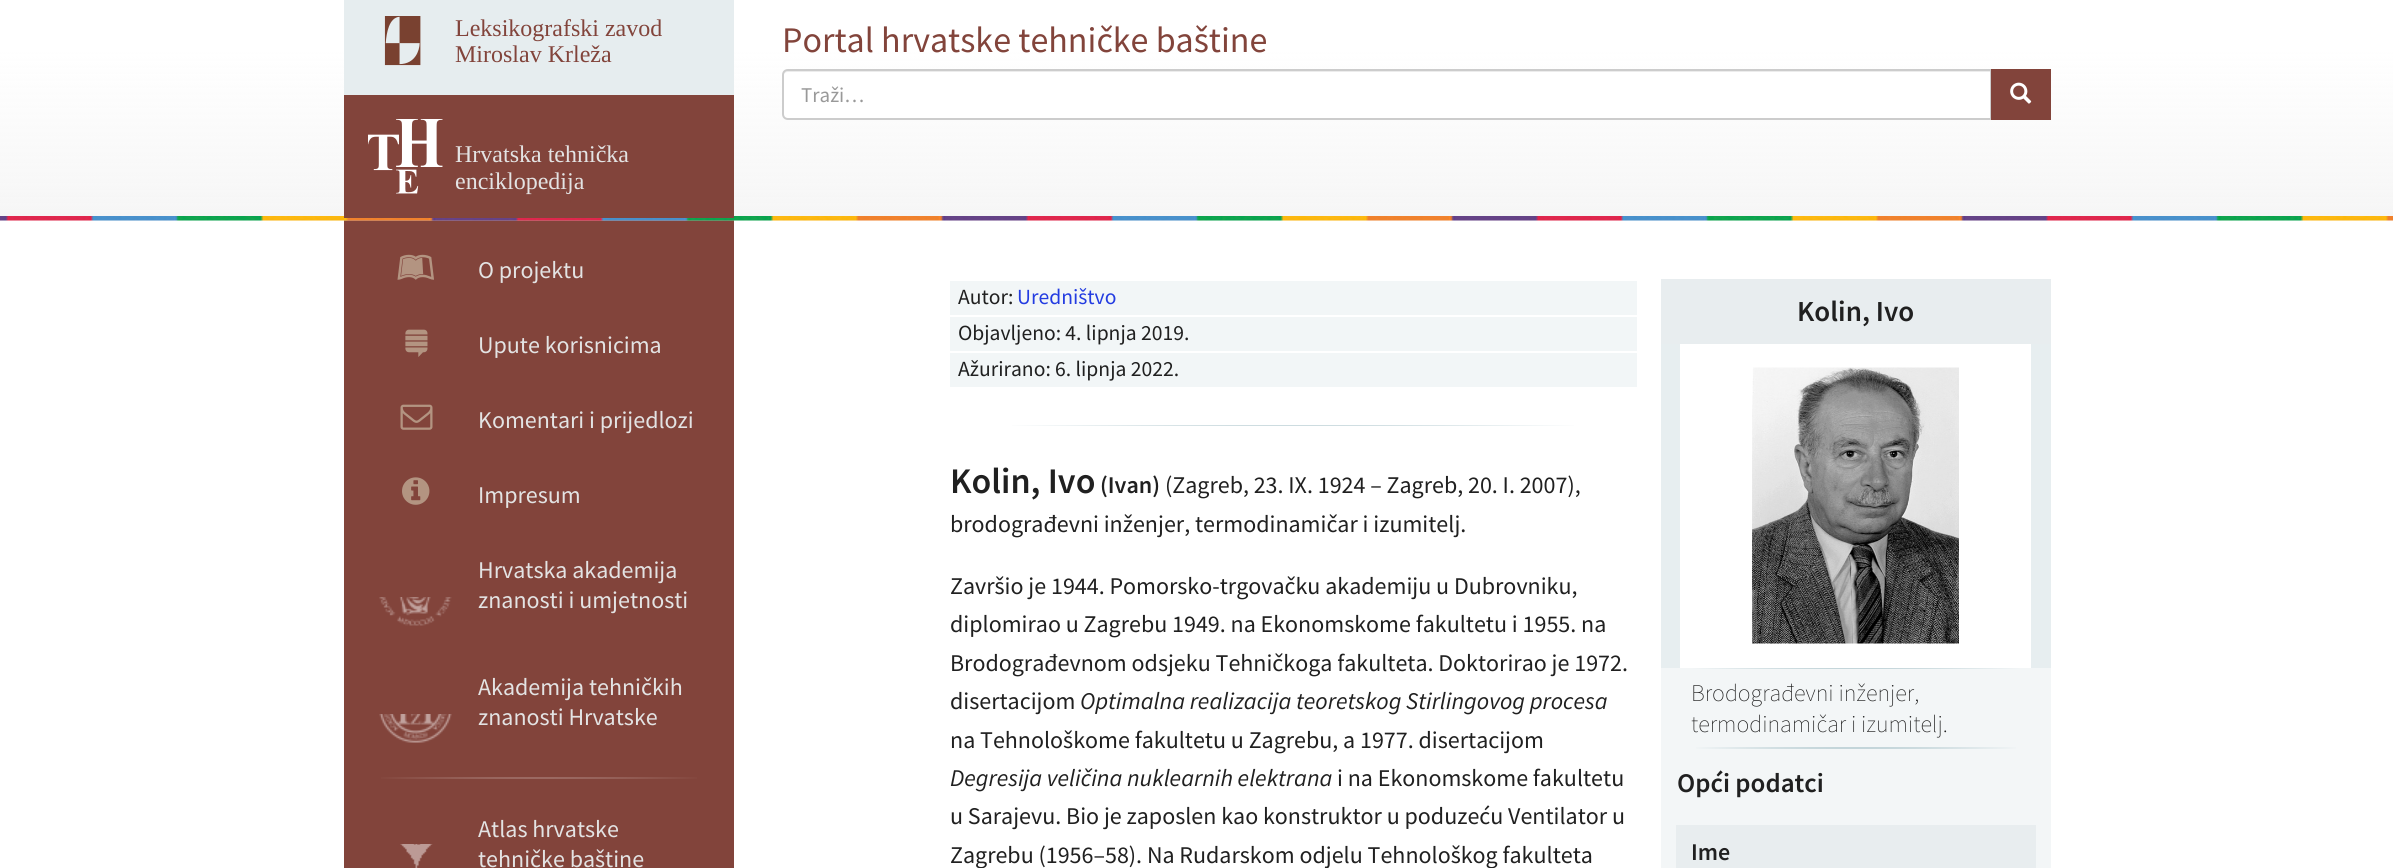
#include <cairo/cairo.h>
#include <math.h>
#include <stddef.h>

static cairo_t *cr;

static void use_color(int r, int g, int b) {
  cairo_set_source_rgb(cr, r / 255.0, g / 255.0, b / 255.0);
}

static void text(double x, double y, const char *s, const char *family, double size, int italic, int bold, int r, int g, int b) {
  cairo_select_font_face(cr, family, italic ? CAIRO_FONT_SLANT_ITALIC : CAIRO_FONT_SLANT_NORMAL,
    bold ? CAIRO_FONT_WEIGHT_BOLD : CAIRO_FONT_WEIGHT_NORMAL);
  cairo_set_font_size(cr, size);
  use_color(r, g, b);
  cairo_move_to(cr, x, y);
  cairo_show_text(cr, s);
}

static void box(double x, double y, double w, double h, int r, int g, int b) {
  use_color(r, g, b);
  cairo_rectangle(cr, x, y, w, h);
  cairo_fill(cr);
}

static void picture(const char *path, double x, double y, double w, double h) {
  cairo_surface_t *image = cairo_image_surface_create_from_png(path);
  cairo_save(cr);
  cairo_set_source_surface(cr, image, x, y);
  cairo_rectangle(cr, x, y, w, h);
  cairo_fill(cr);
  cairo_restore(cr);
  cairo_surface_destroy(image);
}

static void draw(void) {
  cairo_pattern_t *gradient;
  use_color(255, 255, 255);
  cairo_paint(cr);
  box(344, 220, 390, 648, 130, 68, 59);
  picture("img_01.png", 0, 0, 2393, 221);
  box(344, 95, 390, 123, 130, 68, 59);
  box(344, 0, 390, 95, 230, 237, 239);
  picture("img_02.png", 384, 16, 37, 50);
  picture("img_03.png", 368, 119, 75, 75);
  use_color(255, 255, 255);
  cairo_new_path(cr);
  cairo_move_to(cr, 788, 69);
  cairo_line_to(cr, 1992, 69);
  cairo_line_to(cr, 1992, 120);
  cairo_line_to(cr, 788, 120);
  cairo_curve_to(cr, 784.5, 120, 782, 117.5, 782, 114);
  cairo_line_to(cr, 782, 75);
  cairo_curve_to(cr, 782, 71.5, 784.5, 69, 788, 69);
  cairo_close_path(cr);
  cairo_fill(cr);
  use_color(236, 236, 236);
  cairo_new_path(cr);
  cairo_move_to(cr, 788, 72);
  cairo_line_to(cr, 1990, 72);
  cairo_line_to(cr, 1990, 119);
  cairo_line_to(cr, 1991, 119);
  cairo_line_to(cr, 1991, 71);
  cairo_line_to(cr, 788, 71);
  cairo_curve_to(cr, 785, 71, 783, 73, 783, 76);
  cairo_curve_to(cr, 783, 74, 785, 72, 788, 72);
  cairo_close_path(cr);
  cairo_fill(cr);
  cairo_new_path(cr);
  cairo_move_to(cr, 788, 70);
  cairo_line_to(cr, 1991, 70);
  cairo_line_to(cr, 1991, 119);
  cairo_line_to(cr, 788, 119);
  cairo_curve_to(cr, 785, 119, 783, 117, 783, 114);
  cairo_line_to(cr, 783, 75);
  cairo_curve_to(cr, 783, 72, 785, 70, 788, 70);
  cairo_close_path(cr);
  use_color(204, 204, 204);
  cairo_stroke(cr);
  box(1991, 69, 60, 51, 130, 68, 59);
  picture("img_04.png", 2010, 82, 22, 22);
  picture("img_05.png", 397, 254, 37, 26);
  picture("img_06.png", 405, 329, 23, 28);
  picture("img_07.png", 400, 404, 33, 26);
  picture("img_08.png", 402, 477, 28, 28);
  picture("img_09.png", 379, 597, 73, 29);
  picture("img_10.png", 379, 714, 73, 29);
  gradient = cairo_pattern_create_radial(0, 0, 0, 0, 0, 1);
  cairo_pattern_set_matrix(gradient, &(cairo_matrix_t){1.0 / 276, 0, 0, 1.0 / 1.1, -1.0 * 539 / 276, -1.0 * 778 / 1.1});
  cairo_pattern_add_color_stop_rgba(gradient, 0, 0.757, 0.635, 0.616, 1);
  cairo_pattern_add_color_stop_rgba(gradient, 0.75, 0.51, 0.267, 0.231, 1);
  cairo_set_source(cr, gradient);
  cairo_pattern_destroy(gradient);
  cairo_rectangle(cr, 381, 777, 316, 2);
  cairo_fill(cr);
  picture("img_11.png", 400, 844, 33, 24);
  box(950, 281, 687, 34, 242, 246, 247);
  box(950, 317, 687, 34, 242, 246, 247);
  box(950, 353, 687, 34, 242, 246, 247);
  gradient = cairo_pattern_create_radial(0, 0, 0, 0, 0, 1);
  cairo_pattern_set_matrix(gradient, &(cairo_matrix_t){1.0 / 486, 0, 0, 1.0 / 1.1, -1.0 * 1293 / 486, -1.0 * 425 / 1.1});
  cairo_pattern_add_color_stop_rgba(gradient, 0, 0.502, 0.651, 0.69, 1);
  cairo_pattern_add_color_stop_rgba(gradient, 0.75, 1, 1, 1, 1);
  cairo_set_source(cr, gradient);
  cairo_pattern_destroy(gradient);
  cairo_rectangle(cr, 1012, 425, 562, 1);
  cairo_fill(cr);
  box(1661, 670, 390, 198, 243, 246, 247);
  box(1661, 279, 390, 65, 232, 237, 239);
  box(1661, 344, 390, 324, 231, 238, 240);
  box(1680, 344, 351, 324, 255, 255, 255);
  picture("img_12.png", 1752, 367, 207, 277);
  gradient = cairo_pattern_create_radial(0, 0, 0, 0, 0, 1);
  cairo_pattern_set_matrix(gradient, &(cairo_matrix_t){1.0 / 276, 0, 0, 1.0 / 1.1, -1.0 * 1856 / 276, -1.0 * 668 / 1.1});
  cairo_pattern_add_color_stop_rgba(gradient, 0, 0.478, 0.635, 0.675, 1);
  cairo_pattern_add_color_stop_rgba(gradient, 0.75, 0.953, 0.965, 0.969, 1);
  cairo_set_source(cr, gradient);
  cairo_pattern_destroy(gradient);
  cairo_rectangle(cr, 1661, 668, 390, 2);
  cairo_fill(cr);
  gradient = cairo_pattern_create_radial(0, 0, 0, 0, 0, 1);
  cairo_pattern_set_matrix(gradient, &(cairo_matrix_t){1.0 / 276, 0, 0, 1.0 / 1.1, -1.0 * 1856 / 276, -1.0 * 748 / 1.1});
  cairo_pattern_add_color_stop_rgba(gradient, 0, 0.478, 0.635, 0.675, 1);
  cairo_pattern_add_color_stop_rgba(gradient, 0.75, 0.953, 0.965, 0.969, 1);
  cairo_set_source(cr, gradient);
  cairo_pattern_destroy(gradient);
  cairo_rectangle(cr, 1696, 747, 320, 2);
  cairo_fill(cr);
  box(1676, 825, 360, 43, 232, 237, 239);
  text(455, 36, "Leksikografski zavod", "Liberation Serif", 24, 0, 0, 130, 68, 59);
  text(455, 62, "Miroslav Krleža", "Liberation Serif", 24, 0, 0, 130, 68, 59);
  text(455, 162, "Hrvatska tehnička", "Liberation Serif", 24, 0, 0, 227, 227, 227);
  text(455, 189, "enciklopedija", "Liberation Serif", 24, 0, 0, 227, 227, 227);
  text(782, 52, "Portal hrvatske tehničke baštine", "Source Sans Pro", 36, 0, 0, 130, 68, 59);
  text(801, 102, "Traži…", "Source Sans Pro", 21, 0, 0, 153, 153, 153);
  text(478, 278, "O projektu", "Source Sans Pro", 24, 0, 0, 227, 227, 227);
  text(478, 353, "Upute korisnicima", "Source Sans Pro", 24, 0, 0, 227, 227, 227);
  text(478, 428, "Komentari i prijedlozi", "Source Sans Pro", 24, 0, 0, 227, 227, 227);
  text(478, 503, "Impresum", "Source Sans Pro", 24, 0, 0, 227, 227, 227);
  text(478, 578, "Hrvatska akademija", "Source Sans Pro", 24, 0, 0, 227, 227, 227);
  text(478, 608, "znanosti i umjetnosti", "Source Sans Pro", 24, 0, 0, 227, 227, 227);
  text(478, 695, "Akademija tehničkih", "Source Sans Pro", 24, 0, 0, 227, 227, 227);
  text(478, 725, "znanosti Hrvatske", "Source Sans Pro", 24, 0, 0, 227, 227, 227);
  text(478, 837, "Atlas hrvatske", "Source Sans Pro", 24, 0, 0, 227, 227, 227);
  text(478, 867, "tehničke baštine", "Source Sans Pro", 24, 0, 0, 227, 227, 227);
  text(958, 304, "Autor:", "Source Sans Pro", 21.6, 0, 0, 32, 32, 32);
  text(1017, 304, "Uredništvo", "Source Sans Pro", 21.6, 0, 0, 35, 60, 225);
  text(958, 340, "Objavljeno: 4. lipnja 2019.", "Source Sans Pro", 21.6, 0, 0, 32, 32, 32);
  text(958, 376, "Ažurirano: 6. lipnja 2022.", "Source Sans Pro", 21.6, 0, 0, 32, 32, 32);
  text(950, 493, "Kolin, Ivo", "Source Sans Pro SemiBold", 36, 0, 0, 32, 32, 32);
  text(1100, 493, "(Ivan)", "Source Sans Pro SemiBold", 24, 0, 0, 32, 32, 32);
  text(1165, 493, "(Zagreb, 23. IX. 1924 – Zagreb, 20. I. 2007),", "Source Sans Pro", 24, 0, 0, 32, 32, 32);
  text(950, 532, "brodograđevni inženjer, termodinamičar i izumitelj.", "Source Sans Pro", 24, 0, 0, 32, 32, 32);
  text(950, 594, "Završio je 1944. Pomorsko-trgovačku akademiju u Dubrovniku,", "Source Sans Pro", 24, 0, 0, 32, 32, 32);
  text(950, 632, "diplomirao u Zagrebu 1949. na Ekonomskome fakultetu i 1955. na", "Source Sans Pro", 24, 0, 0, 32, 32, 32);
  text(950, 671, "Brodograđevnom odsjeku Tehničkoga fakulteta. Doktorirao je 1972.", "Source Sans Pro", 24, 0, 0, 32, 32, 32);
  text(950, 709, "disertacijom", "Source Sans Pro", 24, 0, 0, 32, 32, 32);
  text(1080, 709, "Optimalna realizacija teoretskog Stirlingovog procesa", "Source Sans Pro", 24, 1, 0, 32, 32, 32);
  text(950, 748, "na Tehnološkome fakultetu u Zagrebu, a 1977. disertacijom", "Source Sans Pro", 24, 0, 0, 32, 32, 32);
  text(950, 786, "Degresija veličina nuklearnih elektrana", "Source Sans Pro", 24, 1, 0, 32, 32, 32);
  text(1337, 786, "i na Ekonomskome fakultetu", "Source Sans Pro", 24, 0, 0, 32, 32, 32);
  text(950, 824, "u Sarajevu. Bio je zaposlen kao konstruktor u poduzeću Ventilator u", "Source Sans Pro", 24, 0, 0, 32, 32, 32);
  text(950, 863, "Zagrebu (1956–58). Na Rudarskom odjelu Tehnološkog fakulteta", "Source Sans Pro", 24, 0, 0, 32, 32, 32);
  text(1797, 321, "Kolin, Ivo", "Source Sans Pro SemiBold", 29, 0, 0, 32, 32, 32);
  text(1691, 701, "Brodograđevni inženjer,", "Source Sans Pro ExtraLight", 24, 0, 0, 32, 32, 32);
  text(1691, 732, "termodinamičar i izumitelj.", "Source Sans Pro ExtraLight", 24, 0, 0, 32, 32, 32);
  text(1677, 792, "Opći podatci", "Source Sans Pro SemiBold", 27, 0, 0, 32, 32, 32);
  text(1691, 860, "Ime", "Source Sans Pro SemiBold", 24, 0, 0, 32, 32, 32);
}

int main(void) {
  cairo_surface_t *surface = cairo_image_surface_create(CAIRO_FORMAT_RGB24, 2393, 868);
  cr = cairo_create(surface);
  cairo_font_options_t *options = cairo_font_options_create();
  cairo_font_options_set_hint_metrics(options, CAIRO_HINT_METRICS_OFF);
  cairo_font_options_set_hint_style(options, CAIRO_HINT_STYLE_NONE);
  cairo_set_font_options(cr, options);
  cairo_set_miter_limit(cr, 4);
  draw();
  cairo_surface_write_to_png(surface, "out.png");
  cairo_font_options_destroy(options);
  cairo_destroy(cr);
  cairo_surface_destroy(surface);
  return 0;
}
